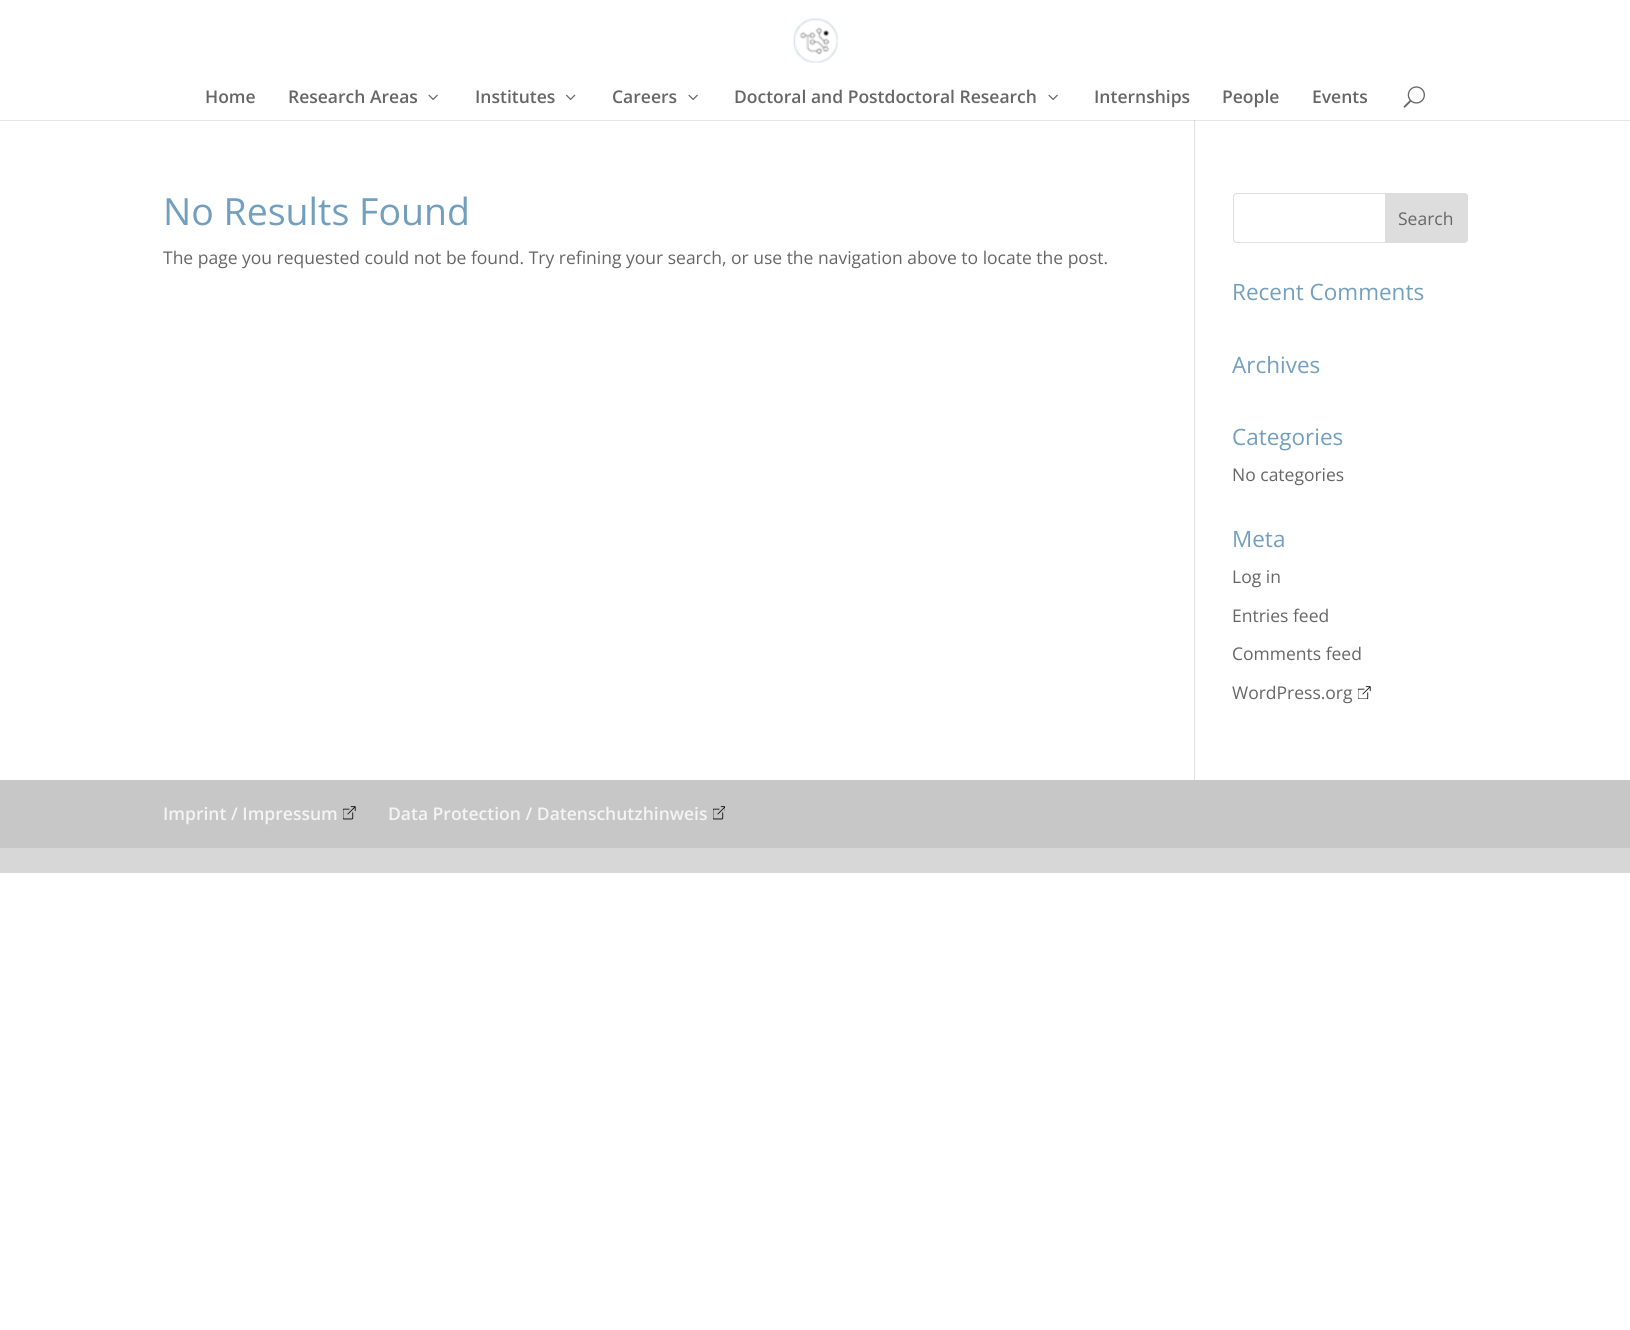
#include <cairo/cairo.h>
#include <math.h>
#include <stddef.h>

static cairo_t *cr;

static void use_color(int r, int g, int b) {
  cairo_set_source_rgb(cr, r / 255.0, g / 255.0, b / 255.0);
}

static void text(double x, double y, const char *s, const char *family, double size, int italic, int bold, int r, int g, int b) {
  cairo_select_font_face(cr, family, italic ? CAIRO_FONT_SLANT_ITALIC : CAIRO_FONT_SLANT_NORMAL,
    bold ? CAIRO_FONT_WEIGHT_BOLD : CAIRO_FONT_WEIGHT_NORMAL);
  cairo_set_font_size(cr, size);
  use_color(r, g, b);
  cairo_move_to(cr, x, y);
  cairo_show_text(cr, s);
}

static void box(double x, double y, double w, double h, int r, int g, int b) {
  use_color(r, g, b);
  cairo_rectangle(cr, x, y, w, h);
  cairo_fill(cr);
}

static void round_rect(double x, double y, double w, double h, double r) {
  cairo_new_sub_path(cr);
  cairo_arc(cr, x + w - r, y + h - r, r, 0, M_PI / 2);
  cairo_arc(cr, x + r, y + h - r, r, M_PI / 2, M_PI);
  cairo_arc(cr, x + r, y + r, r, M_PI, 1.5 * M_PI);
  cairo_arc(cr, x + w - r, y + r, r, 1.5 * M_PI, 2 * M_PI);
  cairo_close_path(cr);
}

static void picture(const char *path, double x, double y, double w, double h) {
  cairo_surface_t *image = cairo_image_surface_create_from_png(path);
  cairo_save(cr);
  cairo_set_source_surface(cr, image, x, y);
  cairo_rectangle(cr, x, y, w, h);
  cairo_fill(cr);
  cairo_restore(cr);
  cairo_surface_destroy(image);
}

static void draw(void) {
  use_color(255, 255, 255);
  cairo_paint(cr);
  box(0, 120, 1630, 1, 230, 230, 230);
  picture("img_01.png", 793, 18, 45, 45);
  picture("img_02.png", 428, 94, 10, 6);
  picture("img_03.png", 566, 94, 10, 6);
  picture("img_02.png", 688, 94, 10, 6);
  picture("img_02.png", 1048, 94, 10, 6);
  picture("img_04.png", 1403, 86, 22, 22);
  box(1194, 120, 1, 660, 226, 226, 226);
  box(1194, 120, 1, 1, 203, 203, 203);
  round_rect(1233.5, 193.5, 234, 49, 3.5);
  use_color(221, 221, 221);
  cairo_set_line_width(cr, 1);
  cairo_stroke(cr);
  cairo_new_path(cr);
  cairo_move_to(cr, 1385.5, 193.5);
  cairo_line_to(cr, 1464, 193.5);
  cairo_curve_to(cr, 1466, 193.5, 1467.5, 195, 1467.5, 197);
  cairo_line_to(cr, 1467.5, 239);
  cairo_curve_to(cr, 1467.5, 241, 1466, 242.5, 1464, 242.5);
  cairo_line_to(cr, 1385.5, 242.5);
  cairo_close_path(cr);
  cairo_fill_preserve(cr);
  cairo_stroke(cr);
  picture("img_05.png", 1358, 686, 13, 13);
  box(0, 780, 1630, 68, 199, 199, 199);
  picture("img_06.png", 343, 806, 13, 14);
  picture("img_07.png", 713, 806, 12, 14);
  box(0, 848, 1630, 25, 215, 215, 215);
  text(205, 103, "Home", "Open Sans SemiBold", 17.5, 0, 0, 102, 102, 102);
  text(288, 103, "Research Areas", "Open Sans SemiBold", 17.5, 0, 0, 102, 102, 102);
  text(475, 103, "Institutes", "Open Sans SemiBold", 17.5, 0, 0, 102, 102, 102);
  text(612, 103, "Careers", "Open Sans SemiBold", 17.5, 0, 0, 102, 102, 102);
  text(734, 103, "Doctoral and Postdoctoral Research", "Open Sans SemiBold", 17.5, 0, 0, 102, 102, 102);
  text(1094, 103, "Internships", "Open Sans SemiBold", 17.5, 0, 0, 102, 102, 102);
  text(1222, 103, "People", "Open Sans SemiBold", 17.5, 0, 0, 102, 102, 102);
  text(1312, 103, "Events", "Open Sans SemiBold", 17.5, 0, 0, 102, 102, 102);
  text(163, 225, "No Results Found", "Open Sans", 37.5, 0, 0, 115, 159, 191);
  text(163, 264, "The page you requested could not be found. Try refining your search, or use the navigation above to locate the post.", "Open Sans", 17.5, 0, 0, 102, 102, 102);
  text(1398, 225, "Search", "Open Sans", 17.5, 0, 0, 102, 102, 102);
  text(1232, 300, "Recent Comments", "Open Sans", 22.5, 0, 0, 115, 159, 191);
  text(1232, 373, "Archives", "Open Sans", 22.5, 0, 0, 115, 159, 191);
  text(1232, 445, "Categories", "Open Sans", 22.5, 0, 0, 115, 159, 191);
  text(1232, 481, "No categories", "Open Sans", 17.5, 0, 0, 102, 102, 102);
  text(1232, 547, "Meta", "Open Sans", 22.5, 0, 0, 115, 159, 191);
  text(1232, 583, "Log in", "Open Sans", 17.5, 0, 0, 102, 102, 102);
  text(1232, 622, "Entries feed", "Open Sans", 17.5, 0, 0, 102, 102, 102);
  text(1232, 660, "Comments feed", "Open Sans", 17.5, 0, 0, 102, 102, 102);
  text(1232, 699, "WordPress.org", "Open Sans", 17.5, 0, 0, 102, 102, 102);
  text(163, 820, "Imprint / Impressum", "Open Sans SemiBold", 17.5, 0, 0, 244, 244, 244);
  text(388, 820, "Data Protection / Datenschutzhinweis", "Open Sans SemiBold", 17.5, 0, 0, 244, 244, 244);
}

int main(void) {
  cairo_surface_t *surface = cairo_image_surface_create(CAIRO_FORMAT_RGB24, 1630, 1330);
  cr = cairo_create(surface);
  cairo_font_options_t *options = cairo_font_options_create();
  cairo_font_options_set_hint_metrics(options, CAIRO_HINT_METRICS_OFF);
  cairo_font_options_set_hint_style(options, CAIRO_HINT_STYLE_NONE);
  cairo_set_font_options(cr, options);
  cairo_set_miter_limit(cr, 4);
  draw();
  cairo_surface_write_to_png(surface, "out.png");
  cairo_font_options_destroy(options);
  cairo_destroy(cr);
  cairo_surface_destroy(surface);
  return 0;
}
